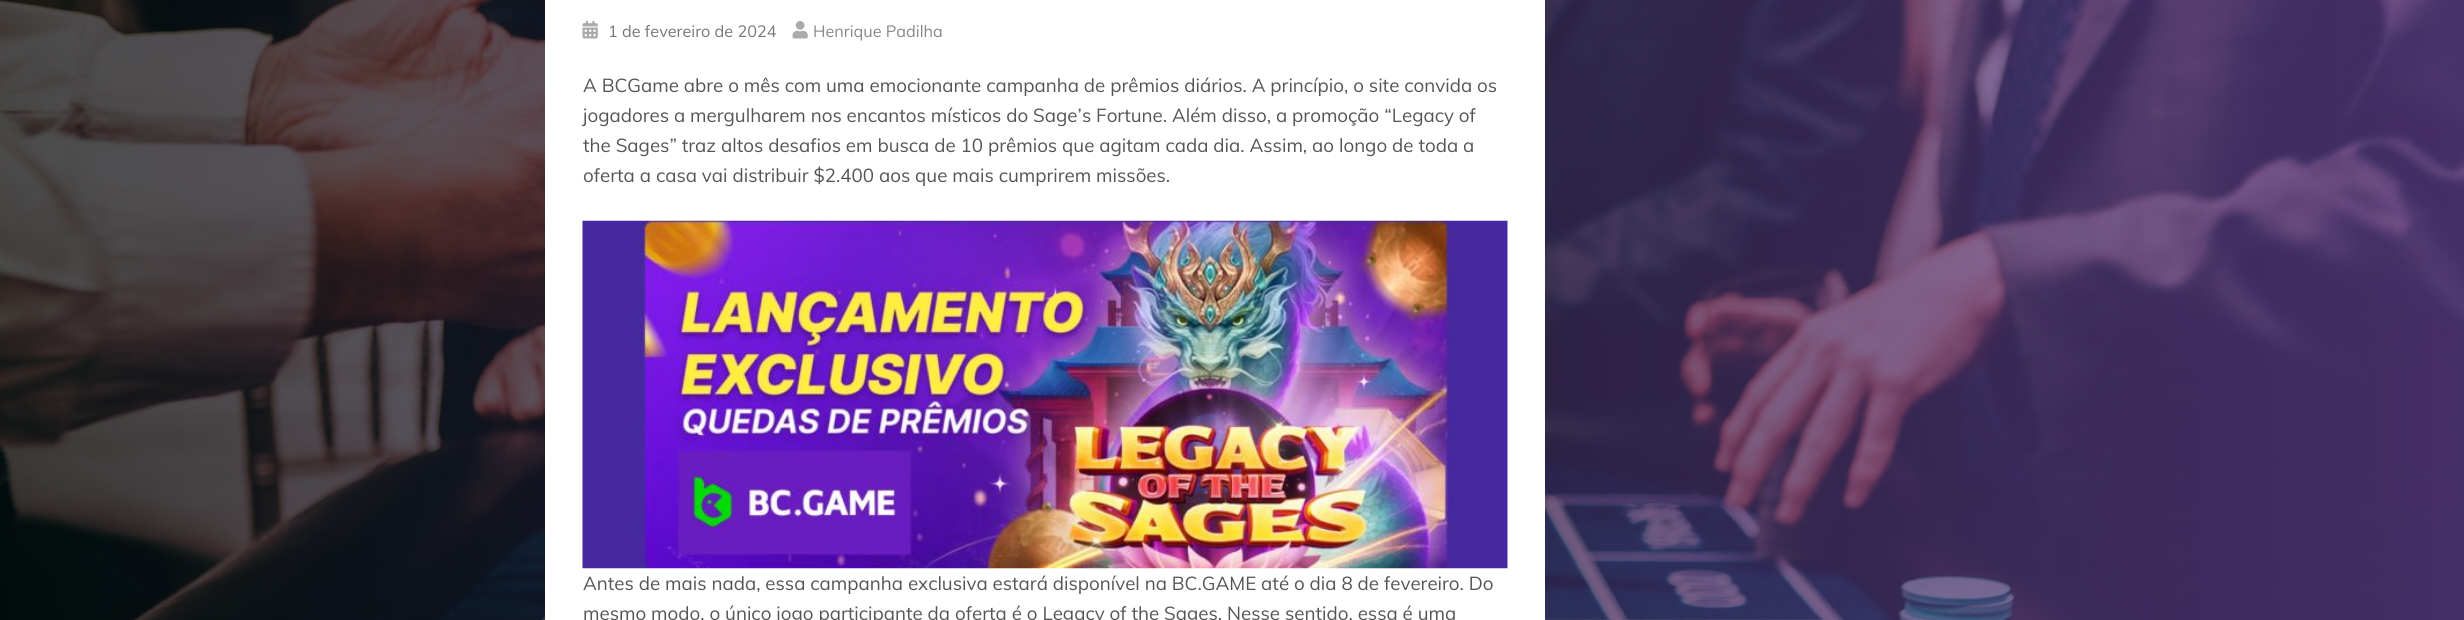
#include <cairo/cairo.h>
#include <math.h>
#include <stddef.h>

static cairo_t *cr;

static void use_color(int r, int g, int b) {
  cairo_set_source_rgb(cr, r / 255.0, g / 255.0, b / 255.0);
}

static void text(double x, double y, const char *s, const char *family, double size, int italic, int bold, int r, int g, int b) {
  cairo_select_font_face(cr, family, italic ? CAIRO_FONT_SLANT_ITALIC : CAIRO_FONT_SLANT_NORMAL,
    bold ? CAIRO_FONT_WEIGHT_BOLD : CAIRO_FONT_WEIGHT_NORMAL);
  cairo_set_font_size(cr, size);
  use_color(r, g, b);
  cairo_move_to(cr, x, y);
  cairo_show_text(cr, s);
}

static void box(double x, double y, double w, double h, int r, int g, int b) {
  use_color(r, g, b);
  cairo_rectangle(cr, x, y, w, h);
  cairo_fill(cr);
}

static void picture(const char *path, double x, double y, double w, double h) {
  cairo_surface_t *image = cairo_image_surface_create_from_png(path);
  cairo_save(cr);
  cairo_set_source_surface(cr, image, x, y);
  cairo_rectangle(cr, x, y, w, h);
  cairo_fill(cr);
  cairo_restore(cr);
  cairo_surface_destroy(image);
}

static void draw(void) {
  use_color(255, 255, 255);
  cairo_paint(cr);
  picture("img_01.png", 0, 0, 2464, 620);
  box(545, 0, 1000, 620, 255, 255, 255);
  picture("img_02.png", 582, 20, 16, 19);
  picture("img_03.png", 792, 21, 16, 18);
  picture("img_04.png", 582, 220, 926, 349);
  text(608, 37, "1 de fevereiro de 2024", "Muli", 16.25, 0, 0, 119, 119, 119);
  text(813, 37, "Henrique Padilha", "Muli", 16.25, 0, 0, 136, 136, 136);
  text(583, 92, "A BCGame abre o mês com uma emocionante campanha de prêmios diários. A princípio, o site convida os", "Muli", 18.75, 0, 0, 85, 85, 85);
  text(583, 122, "jogadores a mergulharem nos encantos místicos do Sage’s Fortune. Além disso, a promoção “Legacy of", "Muli", 18.75, 0, 0, 85, 85, 85);
  text(583, 152, "the Sages” traz altos desafios em busca de 10 prêmios que agitam cada dia. Assim, ao longo de toda a", "Muli", 18.75, 0, 0, 85, 85, 85);
  text(583, 182, "oferta a casa vai distribuir $2.400 aos que mais cumprirem missões.", "Muli", 18.75, 0, 0, 85, 85, 85);
  text(583, 590, "Antes de mais nada, essa campanha exclusiva estará disponível na BC.GAME até o dia 8 de fevereiro. Do", "Muli", 18.75, 0, 0, 85, 85, 85);
  text(583, 620, "mesmo modo, o único jogo participante da oferta é o Legacy of the Sages. Nesse sentido, essa é uma", "Muli", 18.75, 0, 0, 85, 85, 85);
}

int main(void) {
  cairo_surface_t *surface = cairo_image_surface_create(CAIRO_FORMAT_RGB24, 2464, 620);
  cr = cairo_create(surface);
  cairo_font_options_t *options = cairo_font_options_create();
  cairo_font_options_set_hint_metrics(options, CAIRO_HINT_METRICS_OFF);
  cairo_font_options_set_hint_style(options, CAIRO_HINT_STYLE_NONE);
  cairo_set_font_options(cr, options);
  cairo_set_miter_limit(cr, 4);
  draw();
  cairo_surface_write_to_png(surface, "out.png");
  cairo_font_options_destroy(options);
  cairo_destroy(cr);
  cairo_surface_destroy(surface);
  return 0;
}
